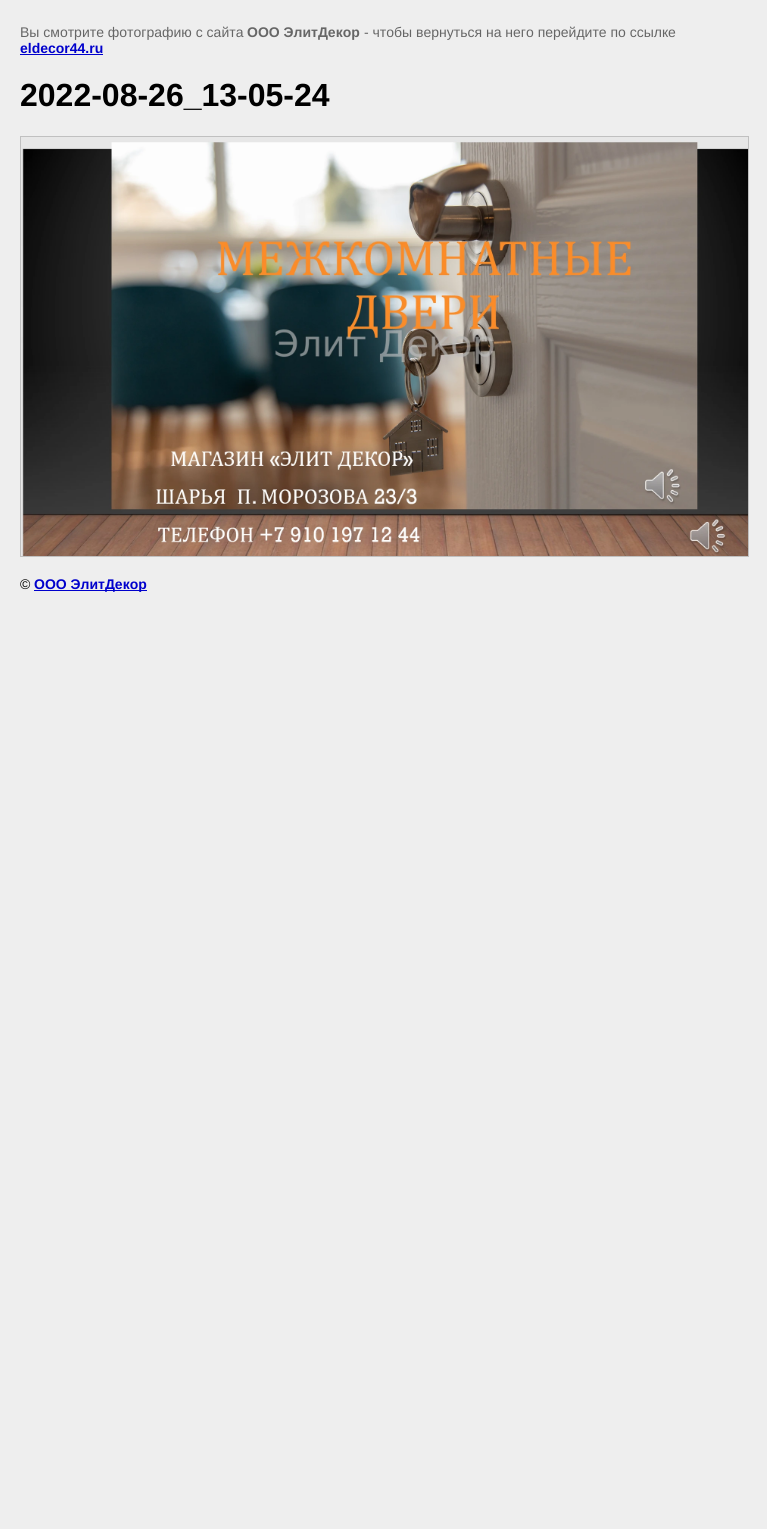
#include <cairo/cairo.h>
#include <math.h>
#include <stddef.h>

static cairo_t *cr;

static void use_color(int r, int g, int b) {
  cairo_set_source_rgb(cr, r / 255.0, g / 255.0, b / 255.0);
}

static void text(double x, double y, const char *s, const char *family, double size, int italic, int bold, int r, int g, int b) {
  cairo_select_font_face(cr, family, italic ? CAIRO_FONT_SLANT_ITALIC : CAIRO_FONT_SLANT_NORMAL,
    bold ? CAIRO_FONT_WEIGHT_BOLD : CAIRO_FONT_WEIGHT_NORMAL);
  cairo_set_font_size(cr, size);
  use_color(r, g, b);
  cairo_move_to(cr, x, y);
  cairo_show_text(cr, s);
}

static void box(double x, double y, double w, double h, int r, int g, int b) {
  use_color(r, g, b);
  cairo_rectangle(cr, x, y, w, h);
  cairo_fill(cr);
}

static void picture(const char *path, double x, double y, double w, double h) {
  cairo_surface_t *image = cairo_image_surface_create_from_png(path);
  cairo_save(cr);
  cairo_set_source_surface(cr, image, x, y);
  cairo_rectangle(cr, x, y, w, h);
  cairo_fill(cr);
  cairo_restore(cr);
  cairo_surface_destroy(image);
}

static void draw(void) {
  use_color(238, 238, 238);
  cairo_paint(cr);
  box(20, 54, 83, 1, 0, 0, 204);
  cairo_rectangle(cr, 20.5, 136.5, 728, 420);
  use_color(192, 192, 192);
  cairo_set_line_width(cr, 1);
  cairo_stroke(cr);
  picture("img_01.png", 21, 137, 727, 419);
  box(34, 590, 113, 1, 0, 0, 204);
  text(20, 37, "Вы смотрите фотографию с сайта", "Liberation Sans", 14, 0, 0, 102, 102, 102);
  text(247, 37, "ООО ЭлитДекор", "Liberation Sans", 14, 0, 1, 102, 102, 102);
  text(364, 37, "- чтобы вернуться на него перейдите по ссылке", "Liberation Sans", 14, 0, 0, 102, 102, 102);
  text(20, 53, "eldecor44.ru", "Liberation Sans", 14, 0, 1, 0, 0, 204);
  text(20, 106, "2022-08-26_13-05-24", "Liberation Sans", 32, 0, 1, 0, 0, 0);
  text(20, 589, "©", "Liberation Sans", 14, 0, 0, 0, 0, 0);
  text(34, 589, "ООО ЭлитДекор", "Liberation Sans", 14, 0, 1, 0, 0, 204);
}

int main(void) {
  cairo_surface_t *surface = cairo_image_surface_create(CAIRO_FORMAT_RGB24, 767, 1529);
  cr = cairo_create(surface);
  cairo_font_options_t *options = cairo_font_options_create();
  cairo_font_options_set_hint_metrics(options, CAIRO_HINT_METRICS_OFF);
  cairo_font_options_set_hint_style(options, CAIRO_HINT_STYLE_NONE);
  cairo_set_font_options(cr, options);
  cairo_set_miter_limit(cr, 4);
  draw();
  cairo_surface_write_to_png(surface, "out.png");
  cairo_font_options_destroy(options);
  cairo_destroy(cr);
  cairo_surface_destroy(surface);
  return 0;
}
